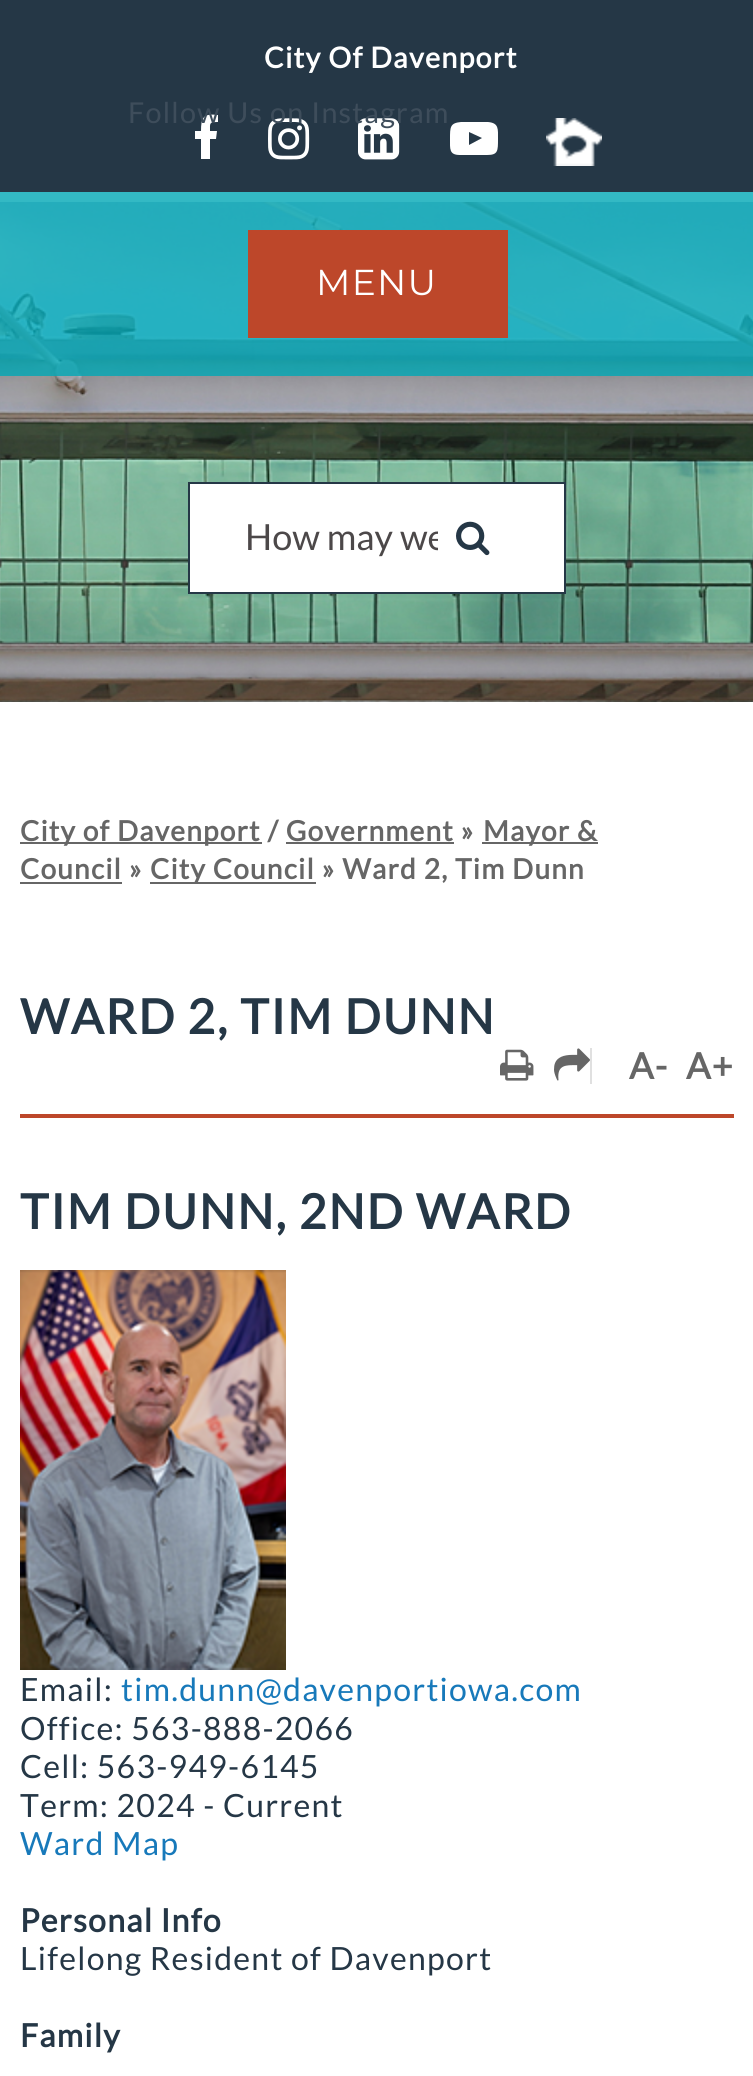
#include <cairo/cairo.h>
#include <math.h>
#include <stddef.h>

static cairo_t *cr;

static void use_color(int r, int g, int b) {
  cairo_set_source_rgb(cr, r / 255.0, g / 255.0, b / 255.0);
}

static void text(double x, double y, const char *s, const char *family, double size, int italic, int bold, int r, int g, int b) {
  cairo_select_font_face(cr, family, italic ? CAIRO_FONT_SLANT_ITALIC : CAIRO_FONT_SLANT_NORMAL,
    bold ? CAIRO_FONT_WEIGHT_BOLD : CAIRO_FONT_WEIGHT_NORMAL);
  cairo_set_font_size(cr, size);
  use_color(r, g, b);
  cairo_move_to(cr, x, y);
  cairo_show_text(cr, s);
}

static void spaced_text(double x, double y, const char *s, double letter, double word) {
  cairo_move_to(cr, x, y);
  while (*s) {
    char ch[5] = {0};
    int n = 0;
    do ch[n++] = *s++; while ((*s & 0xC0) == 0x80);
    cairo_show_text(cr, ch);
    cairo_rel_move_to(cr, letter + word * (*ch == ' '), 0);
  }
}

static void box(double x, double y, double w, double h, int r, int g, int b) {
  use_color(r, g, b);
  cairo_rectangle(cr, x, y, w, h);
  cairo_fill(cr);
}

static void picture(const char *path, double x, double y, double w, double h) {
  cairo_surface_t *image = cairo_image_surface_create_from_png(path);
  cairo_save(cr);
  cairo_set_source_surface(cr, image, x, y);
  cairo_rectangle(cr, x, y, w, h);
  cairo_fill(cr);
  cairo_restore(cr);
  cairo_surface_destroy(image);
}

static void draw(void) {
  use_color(255, 255, 255);
  cairo_paint(cr);
  box(0, 0, 753, 192, 37, 55, 70);
  picture("img_01.png", 268, 118, 42, 42);
  use_color(255, 255, 255);
  cairo_new_path(cr);
  cairo_move_to(cr, 218, 115);
  cairo_line_to(cr, 218, 122);
  cairo_curve_to(cr, 209, 122, 210, 123, 210, 131);
  cairo_line_to(cr, 217, 131);
  cairo_line_to(cr, 216, 139);
  cairo_line_to(cr, 210, 139);
  cairo_line_to(cr, 210, 159);
  cairo_line_to(cr, 201, 159);
  cairo_line_to(cr, 201, 139);
  cairo_line_to(cr, 195, 139);
  cairo_line_to(cr, 195, 131);
  cairo_line_to(cr, 201, 131);
  cairo_curve_to(cr, 201, 118, 203, 113, 218, 115);
  cairo_close_path(cr);
  cairo_fill(cr);
  picture("img_02.png", 358, 118, 42, 42);
  cairo_new_path(cr);
  cairo_move_to(cr, 469, 145);
  cairo_line_to(cr, 482, 138);
  cairo_line_to(cr, 469, 132);
  cairo_close_path(cr);
  cairo_move_to(cr, 474, 122);
  cairo_line_to(cr, 488, 122);
  cairo_curve_to(cr, 499, 123, 498, 129, 498, 139);
  cairo_curve_to(cr, 498, 151, 498, 155, 487, 155);
  cairo_line_to(cr, 460, 155);
  cairo_curve_to(cr, 449, 155, 450, 149, 450, 139);
  cairo_curve_to(cr, 450, 127, 450, 123, 461, 122);
  cairo_close_path(cr);
  cairo_fill(cr);
  picture("img_03.png", 546, 118, 56, 48);
  picture("img_04.png", 0, 202, 753, 500);
  cairo_set_source_rgba(cr, 0, 0.655, 0.71, 0.8);
  cairo_rectangle(cr, 0, 192, 753, 184);
  cairo_fill(cr);
  box(248, 230, 260, 108, 189, 71, 42);
  use_color(255, 255, 255);
  cairo_rectangle(cr, 189, 483, 376, 110);
  cairo_fill_preserve(cr);
  use_color(37, 55, 70);
  cairo_stroke(cr);
  picture("img_05.png", 456, 521, 34, 35);
  box(20, 1114, 714, 4, 189, 71, 42);
  box(20, 842, 242, 2, 102, 102, 102);
  box(482, 842, 116, 2, 102, 102, 102);
  box(286, 842, 168, 2, 102, 102, 102);
  box(20, 882, 102, 2, 102, 102, 102);
  box(150, 882, 166, 2, 102, 102, 102);
  box(590, 1048, 2, 36, 224, 224, 224);
  picture("img_06.png", 500, 1049, 34, 32);
  picture("img_07.png", 554, 1048, 36, 33);
  picture("img_08.png", 20, 1270, 266, 400);
  cairo_select_font_face(cr, "Lato", CAIRO_FONT_SLANT_NORMAL, CAIRO_FONT_WEIGHT_BOLD);
  cairo_set_font_size(cr, 28.75);
  use_color(255, 255, 255);
  spaced_text(264, 68, "City Of Davenport", 1.25, 0);
  cairo_select_font_face(cr, "Lato", CAIRO_FONT_SLANT_NORMAL, CAIRO_FONT_WEIGHT_NORMAL);
  use_color(62, 77, 91);
  spaced_text(128, 123, "Follow Us on Instagram", 1.25, 0);
  cairo_select_font_face(cr, "Montserrat", CAIRO_FONT_SLANT_NORMAL, CAIRO_FONT_WEIGHT_NORMAL);
  cairo_set_font_size(cr, 36);
  use_color(255, 255, 255);
  spaced_text(316, 295, "MENU", 1.25, 0);
  cairo_save(cr);
  cairo_rectangle(cr, 244, 514, 194, 44);
  cairo_clip(cr);
  text(245, 550, "How may we", "Lato", 36, 0, 0, 76, 72, 73);
  cairo_restore(cr);
  cairo_select_font_face(cr, "Lato", CAIRO_FONT_SLANT_NORMAL, CAIRO_FONT_WEIGHT_BOLD);
  cairo_set_font_size(cr, 28);
  use_color(102, 102, 102);
  spaced_text(20, 841, "City of Davenport / Government »", 1.25, 0);
  spaced_text(483, 841, "Mayor &", 1.25, 0);
  spaced_text(20, 879, "Council »", 1.25, 0);
  spaced_text(150, 879, "City Council » Ward 2, Tim Dunn", 1.25, 0);
  cairo_set_font_size(cr, 48);
  use_color(37, 55, 70);
  spaced_text(20, 1034, "WARD 2, TIM DUNN", 1.9, 0);
  cairo_set_font_size(cr, 36);
  use_color(102, 102, 102);
  spaced_text(629, 1079, "A-", 1.25, 0);
  spaced_text(686, 1079, "A+", 1.25, 0);
  cairo_set_font_size(cr, 48);
  use_color(37, 55, 70);
  spaced_text(20, 1229, "TIM DUNN, 2ND WARD", 1.9, 0);
  cairo_select_font_face(cr, "Lato", CAIRO_FONT_SLANT_NORMAL, CAIRO_FONT_WEIGHT_NORMAL);
  cairo_set_font_size(cr, 32);
  spaced_text(20, 1701, "Email:", 1.25, 0);
  use_color(23, 121, 186);
  spaced_text(121, 1701, "tim.dunn@davenportiowa.com", 1.25, 0);
  use_color(37, 55, 70);
  spaced_text(20, 1740, "Office: 563-888-2066", 1.25, 0);
  spaced_text(20, 1778, "Cell: 563-949-6145", 1.25, 0);
  spaced_text(20, 1817, "Term: 2024 - Current", 1.25, 0);
  use_color(23, 121, 186);
  spaced_text(20, 1855, "Ward Map", 1.25, 0);
  cairo_select_font_face(cr, "Lato", CAIRO_FONT_SLANT_NORMAL, CAIRO_FONT_WEIGHT_BOLD);
  use_color(37, 55, 70);
  spaced_text(20, 1932, "Personal Info", 1.25, 0);
  cairo_select_font_face(cr, "Lato", CAIRO_FONT_SLANT_NORMAL, CAIRO_FONT_WEIGHT_NORMAL);
  spaced_text(20, 1970, "Lifelong Resident of Davenport", 1.25, 0);
  cairo_select_font_face(cr, "Lato", CAIRO_FONT_SLANT_NORMAL, CAIRO_FONT_WEIGHT_BOLD);
  spaced_text(20, 2047, "Family", 1.25, 0);
}

int main(void) {
  cairo_surface_t *surface = cairo_image_surface_create(CAIRO_FORMAT_RGB24, 753, 2076);
  cr = cairo_create(surface);
  cairo_font_options_t *options = cairo_font_options_create();
  cairo_font_options_set_hint_metrics(options, CAIRO_HINT_METRICS_OFF);
  cairo_font_options_set_hint_style(options, CAIRO_HINT_STYLE_NONE);
  cairo_set_font_options(cr, options);
  cairo_set_miter_limit(cr, 4);
  draw();
  cairo_surface_write_to_png(surface, "out.png");
  cairo_font_options_destroy(options);
  cairo_destroy(cr);
  cairo_surface_destroy(surface);
  return 0;
}
